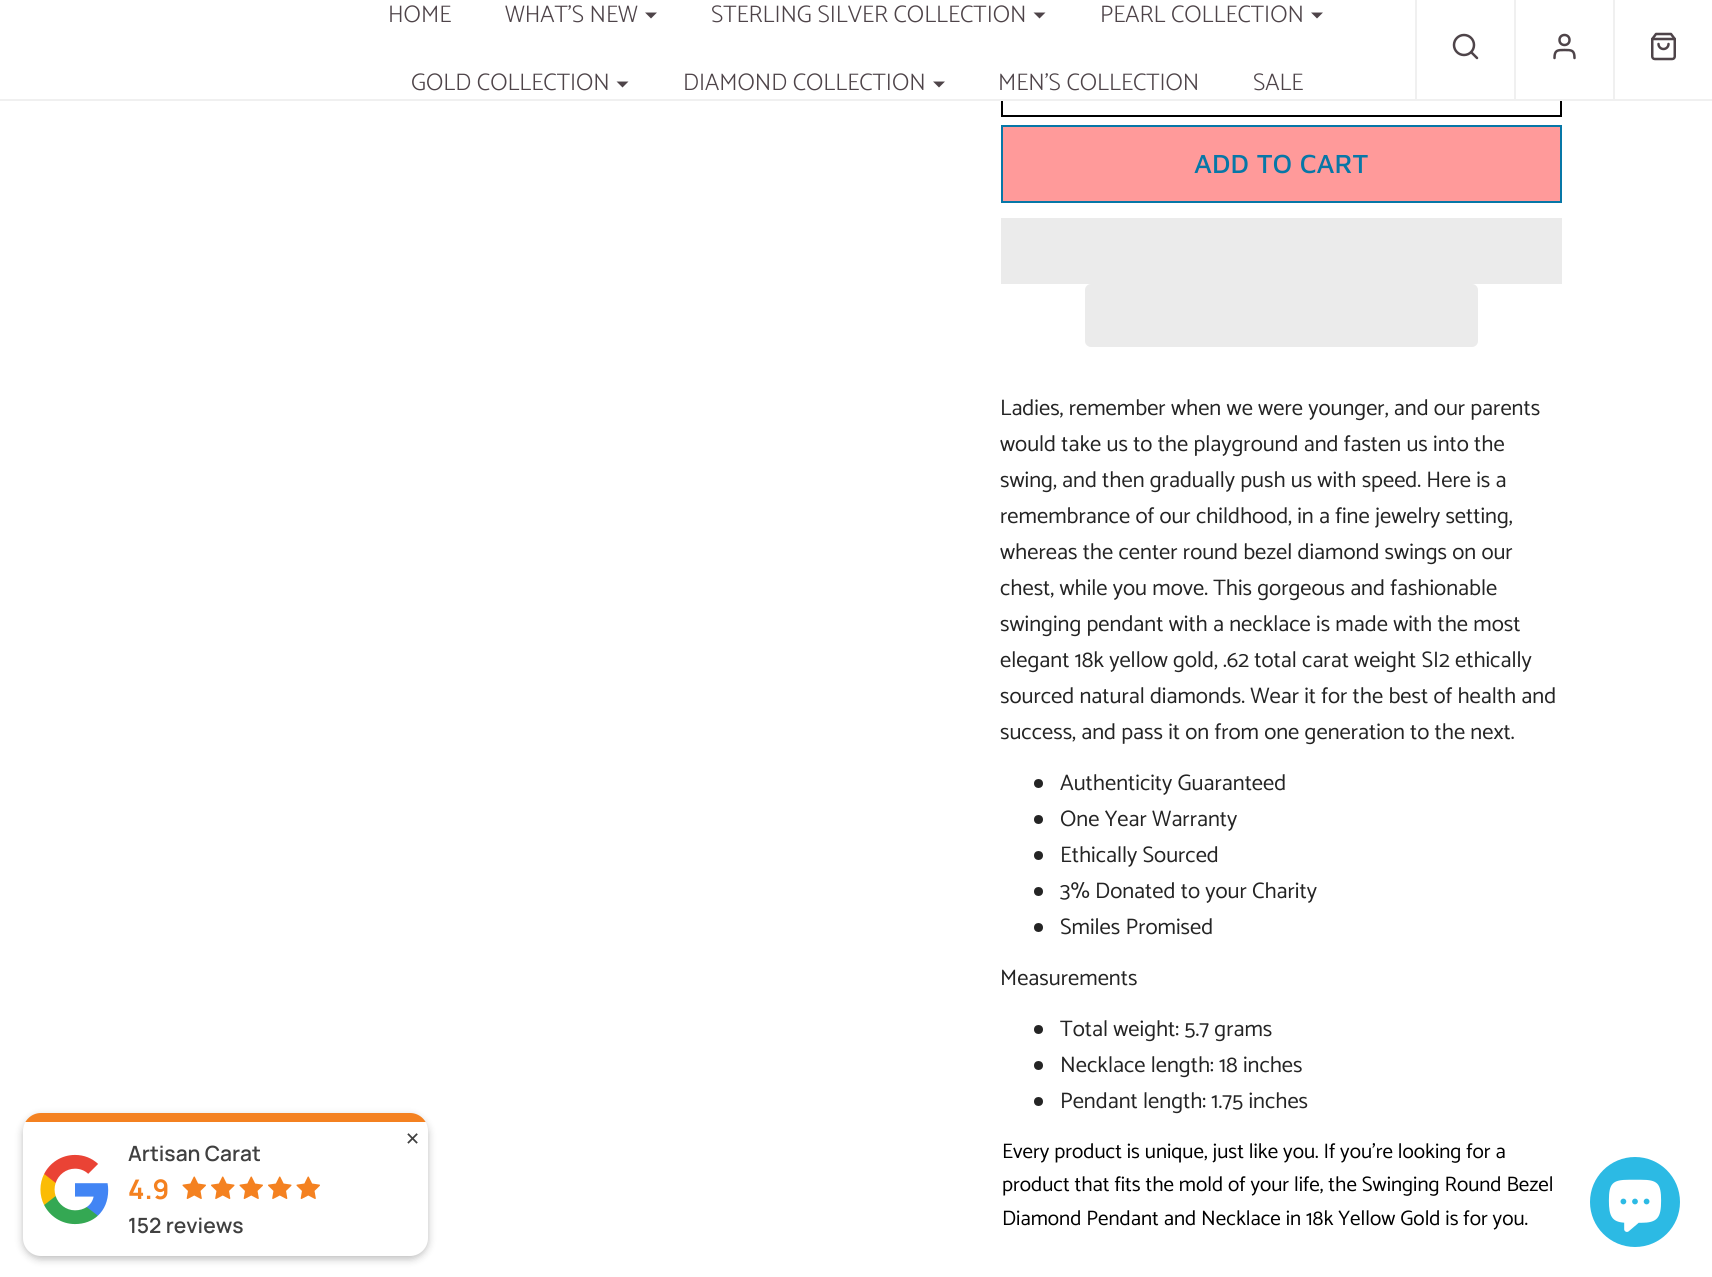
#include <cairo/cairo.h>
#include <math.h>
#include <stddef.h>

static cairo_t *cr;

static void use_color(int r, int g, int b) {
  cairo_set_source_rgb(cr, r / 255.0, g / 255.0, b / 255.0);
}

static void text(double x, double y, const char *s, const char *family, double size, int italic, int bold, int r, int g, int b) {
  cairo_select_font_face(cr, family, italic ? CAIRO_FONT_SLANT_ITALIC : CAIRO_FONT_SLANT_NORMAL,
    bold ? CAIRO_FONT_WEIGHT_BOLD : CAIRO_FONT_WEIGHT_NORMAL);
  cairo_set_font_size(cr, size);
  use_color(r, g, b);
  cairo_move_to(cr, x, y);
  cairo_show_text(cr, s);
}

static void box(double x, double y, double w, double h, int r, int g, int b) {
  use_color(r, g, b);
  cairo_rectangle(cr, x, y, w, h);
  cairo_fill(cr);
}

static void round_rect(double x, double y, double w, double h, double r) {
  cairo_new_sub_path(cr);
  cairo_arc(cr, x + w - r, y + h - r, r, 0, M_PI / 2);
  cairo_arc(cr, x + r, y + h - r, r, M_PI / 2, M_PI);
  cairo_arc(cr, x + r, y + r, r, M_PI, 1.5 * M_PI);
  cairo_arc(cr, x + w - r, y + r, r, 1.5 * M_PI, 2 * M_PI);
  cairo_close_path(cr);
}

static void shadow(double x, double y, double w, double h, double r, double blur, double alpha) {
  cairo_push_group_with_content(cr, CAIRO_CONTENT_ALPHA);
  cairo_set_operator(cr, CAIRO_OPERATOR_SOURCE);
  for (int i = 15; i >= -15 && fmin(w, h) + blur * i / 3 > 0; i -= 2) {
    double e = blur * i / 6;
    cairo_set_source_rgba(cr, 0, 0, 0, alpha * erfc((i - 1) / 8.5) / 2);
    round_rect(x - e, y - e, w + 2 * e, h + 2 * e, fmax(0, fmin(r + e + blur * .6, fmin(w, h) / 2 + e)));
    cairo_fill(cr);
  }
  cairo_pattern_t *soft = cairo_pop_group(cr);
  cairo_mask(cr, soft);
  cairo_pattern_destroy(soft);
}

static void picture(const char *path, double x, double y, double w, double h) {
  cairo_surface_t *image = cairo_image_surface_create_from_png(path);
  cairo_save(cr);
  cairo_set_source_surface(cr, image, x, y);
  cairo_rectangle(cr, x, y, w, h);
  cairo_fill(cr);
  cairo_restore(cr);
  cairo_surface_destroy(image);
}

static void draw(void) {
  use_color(255, 255, 255);
  cairo_paint(cr);
  use_color(0, 0, 0);
  shadow(23, 1116, 405, 143, 18, 4, 0.26);
  cairo_save(cr);
  round_rect(23, 1113, 405, 143, 18);
  cairo_clip(cr);
  box(25, 1113, 401, 9, 244, 129, 32);
  use_color(255, 255, 255);
  cairo_new_path(cr);
  cairo_move_to(cr, 23, 1122);
  cairo_line_to(cr, 428, 1122);
  cairo_line_to(cr, 428, 1238);
  cairo_curve_to(cr, 428, 1248, 420, 1256, 410, 1256);
  cairo_line_to(cr, 41, 1256);
  cairo_curve_to(cr, 31, 1256, 23, 1248, 23, 1238);
  cairo_close_path(cr);
  cairo_fill(cr);
  cairo_restore(cr);
  picture("img_01.png", 40, 1154, 69, 71);
  picture("img_02.png", 182, 1176, 24, 23);
  picture("img_03.png", 211, 1176, 24, 23);
  picture("img_02.png", 239, 1176, 24, 23);
  picture("img_03.png", 268, 1176, 24, 23);
  picture("img_02.png", 296, 1176, 24, 23);
  cairo_rectangle(cr, 1002, -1, 559, 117);
  use_color(0, 0, 0);
  cairo_stroke(cr);
  box(1001, 0, 561, 99, 255, 255, 255);
  box(0, 99, 1712, 2, 240, 240, 240);
  use_color(78, 68, 73);
  cairo_new_path(cr);
  cairo_move_to(cr, 645, 12.5);
  cairo_line_to(cr, 657, 12.5);
  cairo_line_to(cr, 651, 18.5);
  cairo_close_path(cr);
  cairo_fill(cr);
  cairo_new_path(cr);
  cairo_move_to(cr, 1033.5, 12.5);
  cairo_line_to(cr, 1045.5, 12.5);
  cairo_line_to(cr, 1039.5, 18.5);
  cairo_close_path(cr);
  cairo_fill(cr);
  cairo_new_path(cr);
  cairo_move_to(cr, 1311, 12.5);
  cairo_line_to(cr, 1323, 12.5);
  cairo_line_to(cr, 1317, 18.5);
  cairo_close_path(cr);
  cairo_fill(cr);
  cairo_new_path(cr);
  cairo_move_to(cr, 616.5, 81.5);
  cairo_line_to(cr, 628.5, 81.5);
  cairo_line_to(cr, 622.5, 87.5);
  cairo_close_path(cr);
  cairo_fill(cr);
  cairo_new_path(cr);
  cairo_move_to(cr, 933, 81.5);
  cairo_line_to(cr, 945, 81.5);
  cairo_line_to(cr, 939, 87.5);
  cairo_close_path(cr);
  cairo_fill(cr);
  box(1415, 0, 2, 99, 240, 240, 240);
  cairo_arc(cr, 1464, 45, 10, 0, 2 * M_PI);
  use_color(78, 68, 73);
  cairo_set_line_width(cr, 2.5);
  cairo_stroke(cr);
  cairo_new_path(cr);
  cairo_move_to(cr, 1477, 58);
  cairo_line_to(cr, 1471.5, 52.5);
  cairo_set_line_cap(cr, CAIRO_LINE_CAP_ROUND);
  cairo_set_line_join(cr, CAIRO_LINE_JOIN_ROUND);
  cairo_stroke(cr);
  box(1514, 0, 2, 99, 240, 240, 240);
  cairo_arc(cr, 1564.5, 40, 5, 0, 2 * M_PI);
  use_color(78, 68, 73);
  cairo_set_line_cap(cr, CAIRO_LINE_CAP_BUTT);
  cairo_set_line_join(cr, CAIRO_LINE_JOIN_MITER);
  cairo_stroke(cr);
  cairo_new_path(cr);
  cairo_move_to(cr, 1574.5, 58);
  cairo_curve_to(cr, 1574.5, 50, 1571.5, 50, 1564.5, 50);
  cairo_curve_to(cr, 1557.5, 50, 1554.5, 50, 1554.5, 58);
  cairo_set_line_cap(cr, CAIRO_LINE_CAP_ROUND);
  cairo_set_line_join(cr, CAIRO_LINE_JOIN_ROUND);
  cairo_stroke(cr);
  box(1613, 0, 2, 99, 240, 240, 240);
  picture("img_04.png", 1651, 32, 25, 29);
  use_color(255, 154, 154);
  cairo_rectangle(cr, 1002, 126, 559, 76);
  cairo_fill_preserve(cr);
  use_color(7, 119, 167);
  cairo_set_line_width(cr, 2);
  cairo_set_line_cap(cr, CAIRO_LINE_CAP_BUTT);
  cairo_set_line_join(cr, CAIRO_LINE_JOIN_MITER);
  cairo_stroke(cr);
  box(1001, 218, 561, 66, 235, 235, 235);
  round_rect(1085, 284, 393, 63, 6);
  cairo_fill(cr);
  use_color(36, 36, 36);
  cairo_arc(cr, 1038.5, 783.5, 4.5, 0, 2 * M_PI);
  cairo_fill(cr);
  cairo_arc(cr, 1038.5, 819.5, 4.5, 0, 2 * M_PI);
  cairo_fill(cr);
  cairo_arc(cr, 1038.5, 855.5, 4.5, 0, 2 * M_PI);
  cairo_fill(cr);
  cairo_arc(cr, 1038.5, 891.5, 4.5, 0, 2 * M_PI);
  cairo_fill(cr);
  cairo_arc(cr, 1038.5, 927.5, 4.5, 0, 2 * M_PI);
  cairo_fill(cr);
  cairo_arc(cr, 1038.5, 1029.5, 4.5, 0, 2 * M_PI);
  cairo_fill(cr);
  cairo_arc(cr, 1038.5, 1065.5, 4.5, 0, 2 * M_PI);
  cairo_fill(cr);
  cairo_arc(cr, 1038.5, 1101.5, 4.5, 0, 2 * M_PI);
  cairo_fill(cr);
  use_color(44, 186, 228);
  cairo_arc(cr, 1635, 1202, 45, 0, 2 * M_PI);
  cairo_fill(cr);
  picture("img_05.png", 1608, 1179, 54, 53);
  text(405, 1145, "✕", "DejaVu Sans", 18, 0, 0, 64, 64, 64);
  text(128, 1161, "Artisan Carat", "Manrope SemiBold", 21, 0, 0, 64, 64, 64);
  text(128, 1199, "4.9", "Manrope", 27, 0, 1, 244, 129, 32);
  text(128, 1233, "152 reviews", "Manrope SemiBold", 21, 0, 0, 64, 64, 64);
  text(388, 22, "HOME", "Catamaran Light", 24, 0, 0, 78, 68, 73);
  text(505, 22, "WHAT'S NEW", "Catamaran Light", 24, 0, 0, 78, 68, 73);
  text(711, 22, "STERLING SILVER COLLECTION", "Catamaran Light", 24, 0, 0, 78, 68, 73);
  text(1100, 22, "PEARL COLLECTION", "Catamaran Light", 24, 0, 0, 78, 68, 73);
  text(411, 90, "GOLD COLLECTION", "Catamaran Light", 24, 0, 0, 78, 68, 73);
  text(683, 90, "DIAMOND COLLECTION", "Catamaran Light", 24, 0, 0, 78, 68, 73);
  text(998, 90, "MEN'S COLLECTION", "Catamaran Light", 24, 0, 0, 78, 68, 73);
  text(1253, 90, "SALE", "Catamaran Light", 24, 0, 0, 78, 68, 73);
  text(1194, 173, "ADD TO CART", "Maven Pro Medium", 27, 0, 0, 7, 119, 167);
  text(1000, 415, "Ladies, remember when we were younger, and our parents", "Catamaran", 22.5, 0, 0, 36, 36, 36);
  text(1000, 451, "would take us to the playground and fasten us into the", "Catamaran", 22.5, 0, 0, 36, 36, 36);
  text(1000, 487, "swing, and then gradually push us with speed. Here is a", "Catamaran", 22.5, 0, 0, 36, 36, 36);
  text(1000, 523, "remembrance of our childhood, in a fine jewelry setting,", "Catamaran", 22.5, 0, 0, 36, 36, 36);
  text(1000, 559, "whereas the center round bezel diamond swings on our", "Catamaran", 22.5, 0, 0, 36, 36, 36);
  text(1000, 595, "chest, while you move. This gorgeous and fashionable", "Catamaran", 22.5, 0, 0, 36, 36, 36);
  text(1000, 631, "swinging pendant with a necklace is made with the most", "Catamaran", 22.5, 0, 0, 36, 36, 36);
  text(1000, 667, "elegant 18k yellow gold, .62 total carat weight SI2 ethically", "Catamaran", 22.5, 0, 0, 36, 36, 36);
  text(1000, 703, "sourced natural diamonds. Wear it for the best of health and", "Catamaran", 22.5, 0, 0, 36, 36, 36);
  text(1000, 739, "success, and pass it on from one generation to the next.", "Catamaran", 22.5, 0, 0, 36, 36, 36);
  text(1060, 790, "Authenticity Guaranteed", "Catamaran", 22.5, 0, 0, 36, 36, 36);
  text(1060, 826, "One Year Warranty", "Catamaran", 22.5, 0, 0, 36, 36, 36);
  text(1060, 862, "Ethically Sourced", "Catamaran", 22.5, 0, 0, 36, 36, 36);
  text(1060, 898, "3% Donated to your Charity", "Catamaran", 22.5, 0, 0, 36, 36, 36);
  text(1060, 934, "Smiles Promised", "Catamaran", 22.5, 0, 0, 36, 36, 36);
  text(1000, 985, "Measurements", "Catamaran", 22.5, 0, 0, 36, 36, 36);
  text(1060, 1036, "Total weight: 5.7 grams", "Catamaran", 22.5, 0, 0, 36, 36, 36);
  text(1060, 1072, "Necklace length: 18 inches", "Catamaran", 22.5, 0, 0, 36, 36, 36);
  text(1060, 1108, "Pendant length: 1.75 inches", "Catamaran", 22.5, 0, 0, 36, 36, 36);
  text(1002, 1158, "Every product is unique, just like you. If you're looking for a", "Catamaran", 21, 0, 0, 0, 0, 0);
  text(1002, 1191, "product that fits the mold of your life, the Swinging Round Bezel", "Catamaran", 21, 0, 0, 0, 0, 0);
  text(1002, 1225, "Diamond Pendant and Necklace in 18k Yellow Gold is for you.", "Catamaran", 21, 0, 0, 0, 0, 0);
}

int main(void) {
  cairo_surface_t *surface = cairo_image_surface_create(CAIRO_FORMAT_RGB24, 1712, 1277);
  cr = cairo_create(surface);
  cairo_font_options_t *options = cairo_font_options_create();
  cairo_font_options_set_hint_metrics(options, CAIRO_HINT_METRICS_OFF);
  cairo_font_options_set_hint_style(options, CAIRO_HINT_STYLE_NONE);
  cairo_set_font_options(cr, options);
  cairo_set_miter_limit(cr, 4);
  draw();
  cairo_surface_write_to_png(surface, "out.png");
  cairo_font_options_destroy(options);
  cairo_destroy(cr);
  cairo_surface_destroy(surface);
  return 0;
}
